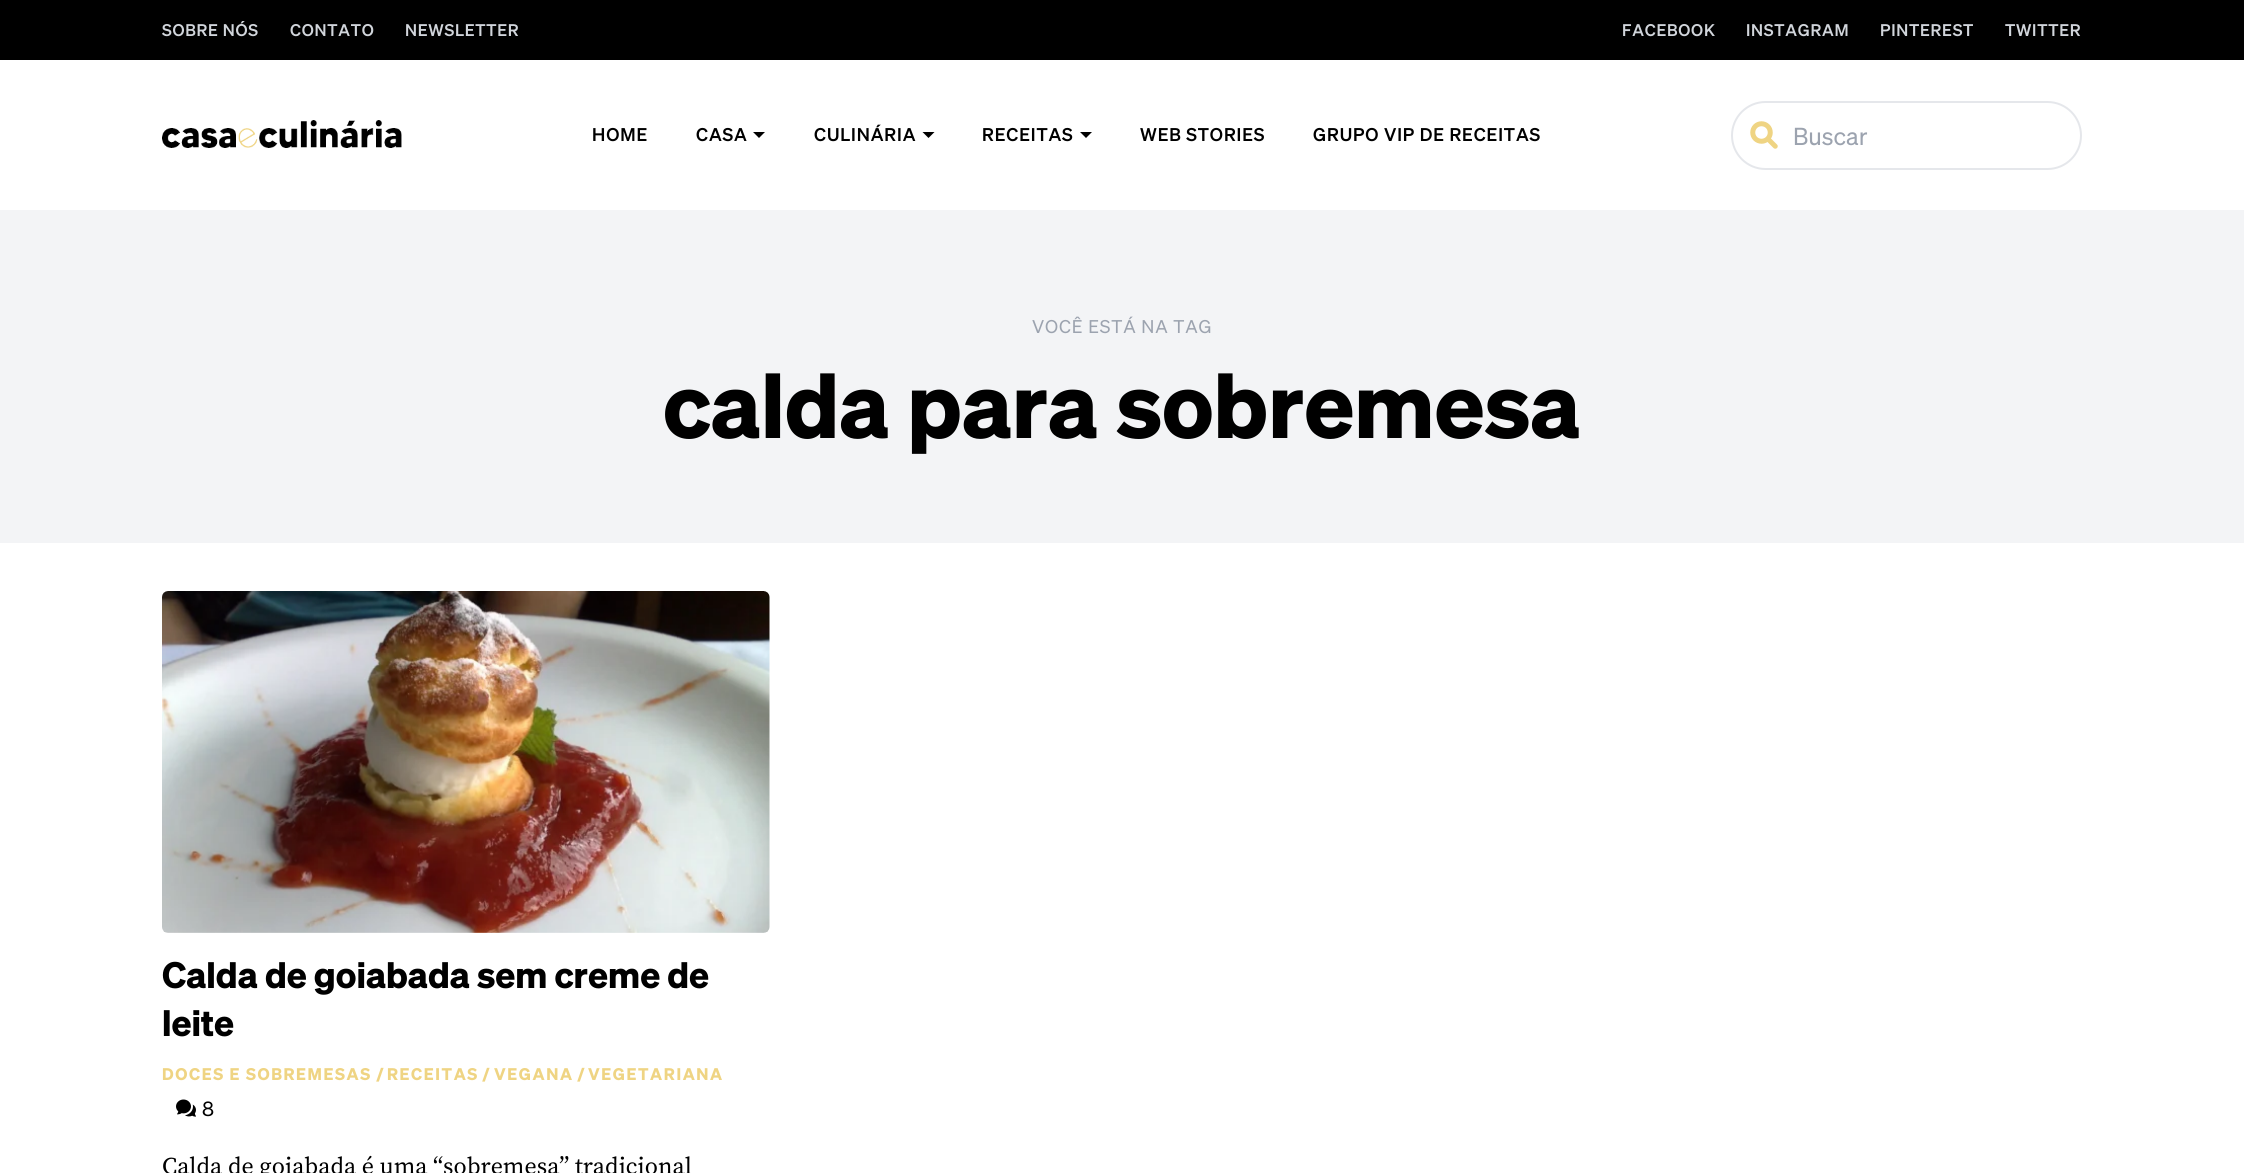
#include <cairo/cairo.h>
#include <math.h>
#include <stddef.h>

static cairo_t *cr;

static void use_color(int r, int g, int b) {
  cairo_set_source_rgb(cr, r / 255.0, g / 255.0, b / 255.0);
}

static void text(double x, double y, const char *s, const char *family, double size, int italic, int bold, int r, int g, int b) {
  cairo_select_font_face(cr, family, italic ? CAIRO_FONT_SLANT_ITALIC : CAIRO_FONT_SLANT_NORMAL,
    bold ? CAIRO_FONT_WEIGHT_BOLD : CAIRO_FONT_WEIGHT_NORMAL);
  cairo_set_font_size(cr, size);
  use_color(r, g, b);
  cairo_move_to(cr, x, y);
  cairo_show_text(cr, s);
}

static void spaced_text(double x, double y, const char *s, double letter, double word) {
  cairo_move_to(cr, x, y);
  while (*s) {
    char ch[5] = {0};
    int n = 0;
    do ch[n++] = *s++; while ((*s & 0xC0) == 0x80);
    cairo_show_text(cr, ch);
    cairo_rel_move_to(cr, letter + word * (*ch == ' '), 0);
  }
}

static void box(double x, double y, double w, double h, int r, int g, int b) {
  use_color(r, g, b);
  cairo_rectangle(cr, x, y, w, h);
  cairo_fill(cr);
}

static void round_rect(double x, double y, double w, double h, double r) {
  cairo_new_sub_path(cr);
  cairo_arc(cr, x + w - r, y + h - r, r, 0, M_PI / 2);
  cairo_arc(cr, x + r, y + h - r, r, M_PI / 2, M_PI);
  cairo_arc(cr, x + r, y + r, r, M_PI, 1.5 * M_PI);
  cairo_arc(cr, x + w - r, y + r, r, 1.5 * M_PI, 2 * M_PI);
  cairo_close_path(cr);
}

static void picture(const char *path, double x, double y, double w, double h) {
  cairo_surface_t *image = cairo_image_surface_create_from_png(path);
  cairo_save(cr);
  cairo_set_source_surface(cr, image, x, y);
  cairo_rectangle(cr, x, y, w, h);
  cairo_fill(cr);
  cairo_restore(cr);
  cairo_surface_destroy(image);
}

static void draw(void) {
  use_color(255, 255, 255);
  cairo_paint(cr);
  box(0, 0, 2244, 60, 0, 0, 0);
  picture("img_01.png", 162, 120, 240, 28);
  cairo_new_path(cr);
  cairo_move_to(cr, 753, 132);
  cairo_line_to(cr, 765, 132);
  cairo_line_to(cr, 759, 138);
  cairo_close_path(cr);
  cairo_fill(cr);
  cairo_new_path(cr);
  cairo_move_to(cr, 922.5, 132);
  cairo_line_to(cr, 934.5, 132);
  cairo_line_to(cr, 928.5, 138);
  cairo_close_path(cr);
  cairo_fill(cr);
  cairo_new_path(cr);
  cairo_move_to(cr, 1080, 132);
  cairo_line_to(cr, 1092, 132);
  cairo_line_to(cr, 1086, 138);
  cairo_close_path(cr);
  cairo_fill(cr);
  round_rect(1732, 102, 349, 67, 33.5);
  use_color(229, 231, 235);
  cairo_stroke(cr);
  picture("img_02.png", 1750, 121, 28, 28);
  box(0, 210, 2244, 333, 243, 244, 246);
  picture("img_03.png", 162, 591, 608, 342);
  picture("img_04.png", 176, 1099, 20, 18);
  cairo_select_font_face(cr, "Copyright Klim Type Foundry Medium", CAIRO_FONT_SLANT_ITALIC, CAIRO_FONT_WEIGHT_NORMAL);
  cairo_set_font_size(cr, 16.5);
  use_color(209, 213, 219);
  spaced_text(162, 36, "SOBRE NÓS", 0.75, 0);
  spaced_text(290, 36, "CONTATO", 0.75, 0);
  spaced_text(405, 36, "NEWSLETTER", 0.75, 0);
  spaced_text(1622, 36, "FACEBOOK", 0.75, 0);
  spaced_text(1746, 36, "INSTAGRAM", 0.75, 0);
  spaced_text(1880, 36, "PINTEREST", 0.75, 0);
  spaced_text(2005, 36, "TWITTER", 0.75, 0);
  cairo_set_font_size(cr, 18);
  use_color(0, 0, 0);
  spaced_text(592, 141, "HOME", 0.9, 0);
  spaced_text(696, 141, "CASA", 0.9, 0);
  spaced_text(814, 141, "CULINÁRIA", 0.9, 0);
  spaced_text(982, 141, "RECEITAS", 0.9, 0);
  spaced_text(1140, 141, "WEB STORIES", 0.9, 0);
  spaced_text(1313, 141, "GRUPO VIP DE RECEITAS", 0.9, 0);
  text(1793, 145, "Buscar", "Copyright Klim Type Foundry", 24, 1, 0, 156, 163, 175);
  cairo_set_font_size(cr, 18);
  spaced_text(1032, 333, "VOCÊ ESTÁ NA TAG", 0.9, 0);
  text(663, 438, "calda para sobremesa", "Copyright Klim Type Foundry", 90, 1, 1, 0, 0, 0);
  text(162, 988, "Calda de goiabada sem creme de", "Copyright Klim Type Foundry", 36, 1, 1, 0, 0, 0);
  text(162, 1036, "leite", "Copyright Klim Type Foundry", 36, 1, 1, 0, 0, 0);
  cairo_set_font_size(cr, 16.5);
  use_color(239, 212, 131);
  spaced_text(162, 1080, "DOCES E SOBREMESAS", 1.6, 0);
  text(376, 1080, "/", "Copyright Klim Type Foundry", 16.5, 1, 1, 239, 212, 131);
  spaced_text(387, 1080, "RECEITAS", 1.6, 0);
  text(482, 1080, "/", "Copyright Klim Type Foundry", 16.5, 1, 1, 239, 212, 131);
  spaced_text(494, 1080, "VEGANA", 1.6, 0);
  text(577, 1080, "/", "Copyright Klim Type Foundry", 16.5, 1, 1, 239, 212, 131);
  spaced_text(588, 1080, "VEGETARIANA", 1.6, 0);
  text(202, 1116, "8", "Copyright Klim Type Foundry", 20, 1, 0, 0, 0, 0);
  text(162, 1174, "Calda de goiabada é uma “sobremesa” tradicional", "Source Serif Pro", 24, 0, 0, 0, 0, 0);
}

int main(void) {
  cairo_surface_t *surface = cairo_image_surface_create(CAIRO_FORMAT_RGB24, 2244, 1173);
  cr = cairo_create(surface);
  cairo_font_options_t *options = cairo_font_options_create();
  cairo_font_options_set_hint_metrics(options, CAIRO_HINT_METRICS_OFF);
  cairo_font_options_set_hint_style(options, CAIRO_HINT_STYLE_NONE);
  cairo_set_font_options(cr, options);
  cairo_set_miter_limit(cr, 4);
  draw();
  cairo_surface_write_to_png(surface, "out.png");
  cairo_font_options_destroy(options);
  cairo_destroy(cr);
  cairo_surface_destroy(surface);
  return 0;
}
